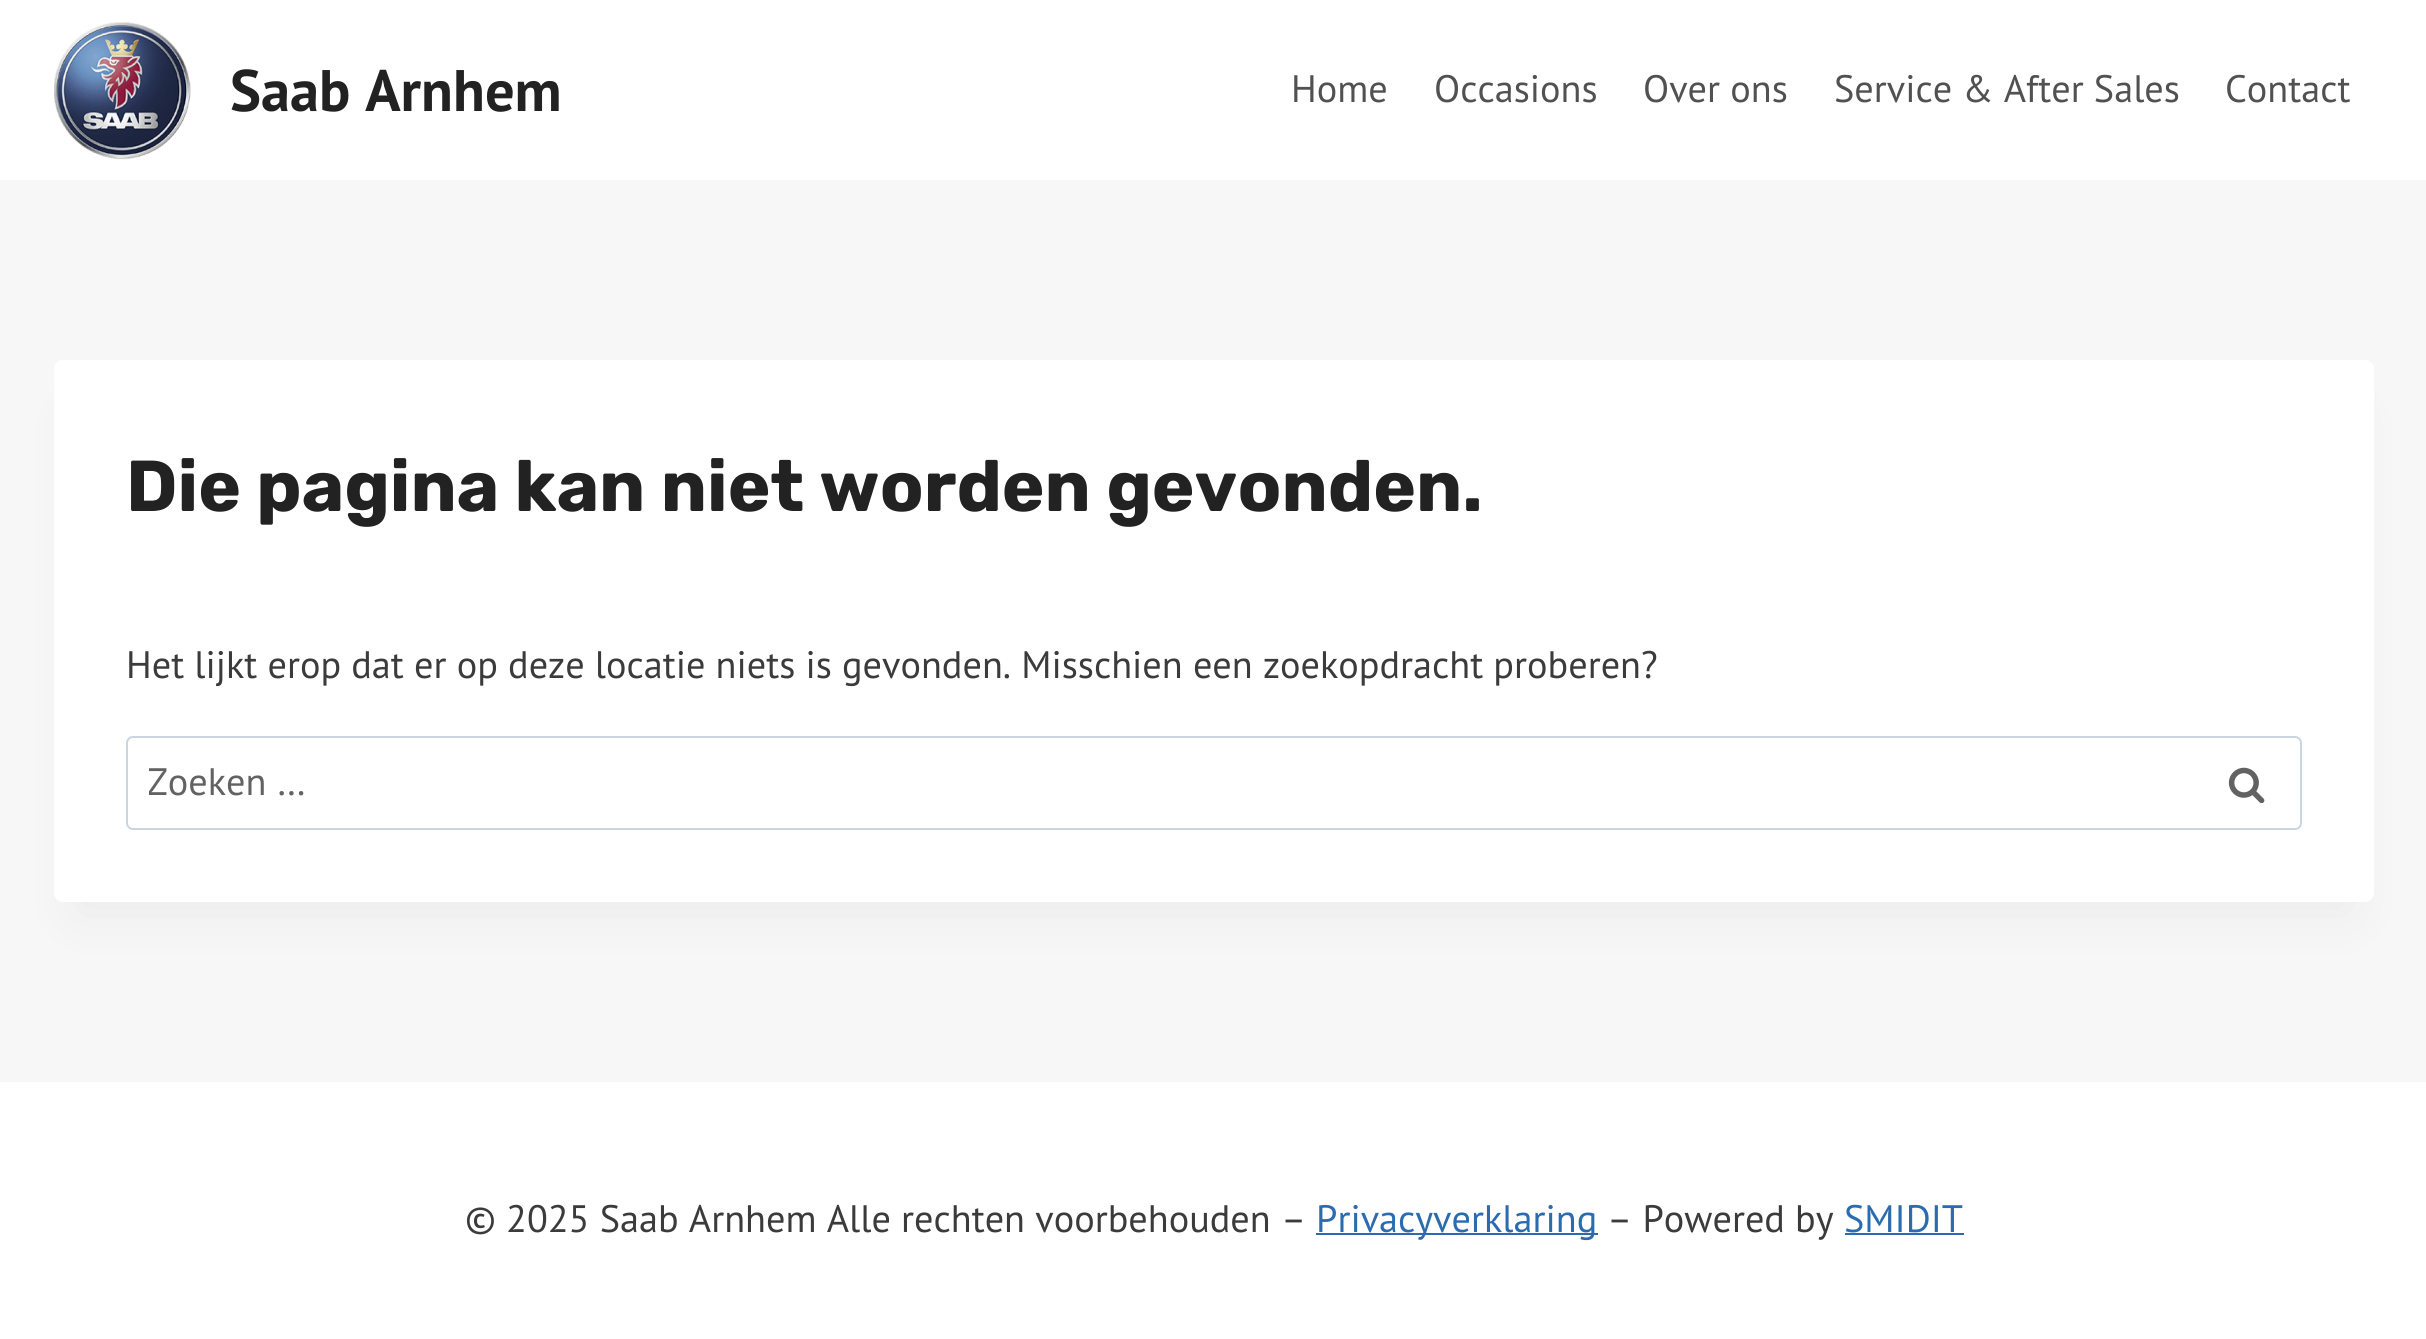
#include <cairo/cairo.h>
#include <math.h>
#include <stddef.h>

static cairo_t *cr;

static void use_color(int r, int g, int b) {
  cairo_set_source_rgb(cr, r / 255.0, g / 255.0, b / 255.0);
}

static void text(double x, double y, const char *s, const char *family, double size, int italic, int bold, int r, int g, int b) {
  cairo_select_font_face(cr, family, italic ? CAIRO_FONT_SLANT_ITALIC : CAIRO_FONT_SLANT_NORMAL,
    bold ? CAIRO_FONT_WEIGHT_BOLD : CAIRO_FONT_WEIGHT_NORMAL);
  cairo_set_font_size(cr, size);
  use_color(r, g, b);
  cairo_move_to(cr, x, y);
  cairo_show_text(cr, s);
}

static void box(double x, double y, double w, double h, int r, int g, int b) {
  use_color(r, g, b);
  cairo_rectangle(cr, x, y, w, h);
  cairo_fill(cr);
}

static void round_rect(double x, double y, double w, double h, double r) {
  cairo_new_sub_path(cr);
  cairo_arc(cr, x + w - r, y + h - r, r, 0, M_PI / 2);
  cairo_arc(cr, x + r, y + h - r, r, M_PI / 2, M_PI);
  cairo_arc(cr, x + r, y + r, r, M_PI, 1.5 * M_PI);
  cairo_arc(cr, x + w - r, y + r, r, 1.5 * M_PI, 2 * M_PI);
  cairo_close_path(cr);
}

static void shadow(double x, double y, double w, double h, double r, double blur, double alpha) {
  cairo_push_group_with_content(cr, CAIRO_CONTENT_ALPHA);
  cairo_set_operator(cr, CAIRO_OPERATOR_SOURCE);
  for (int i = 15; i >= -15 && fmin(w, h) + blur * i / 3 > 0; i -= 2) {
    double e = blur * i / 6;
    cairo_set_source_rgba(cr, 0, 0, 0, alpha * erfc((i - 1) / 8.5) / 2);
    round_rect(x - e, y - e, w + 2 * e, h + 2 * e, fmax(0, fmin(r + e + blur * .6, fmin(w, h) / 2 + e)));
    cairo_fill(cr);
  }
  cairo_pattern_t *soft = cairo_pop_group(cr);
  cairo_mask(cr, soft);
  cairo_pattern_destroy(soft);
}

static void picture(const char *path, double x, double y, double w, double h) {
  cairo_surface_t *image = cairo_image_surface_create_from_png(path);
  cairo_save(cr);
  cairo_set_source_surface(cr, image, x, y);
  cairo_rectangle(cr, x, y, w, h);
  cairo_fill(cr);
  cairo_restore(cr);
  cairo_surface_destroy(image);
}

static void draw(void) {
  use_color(247, 247, 247);
  cairo_paint(cr);
  box(0, 0, 2426, 180, 255, 255, 255);
  picture("img_01.png", 54, 22, 137, 138);
  use_color(0, 0, 0);
  shadow(77, 416, 2274, 498, 0, 28, 0.05);
  use_color(255, 255, 255);
  round_rect(54, 360, 2320, 542, 9);
  cairo_fill(cr);
  round_rect(127, 737, 2174, 92, 6);
  use_color(203, 213, 224);
  cairo_stroke(cr);
  picture("img_02.png", 2228, 767, 37, 36);
  box(0, 1082, 2426, 257, 255, 255, 255);
  box(1316, 1233, 282, 2, 43, 108, 176);
  box(1845, 1233, 119, 2, 43, 108, 176);
  text(230, 111, "Saab Arnhem", "PT Sans", 58.5, 0, 1, 34, 34, 34);
  text(1291, 102, "Home", "PT Sans", 38.25, 0, 0, 81, 81, 81);
  text(1434, 102, "Occasions", "PT Sans", 38.25, 0, 0, 81, 81, 81);
  text(1643, 102, "Over ons", "PT Sans", 38.25, 0, 0, 81, 81, 81);
  text(1834, 102, "Service & After Sales", "PT Sans", 38.25, 0, 0, 81, 81, 81);
  text(2225, 102, "Contact", "PT Sans", 38.25, 0, 0, 81, 81, 81);
  text(126, 511, "Die pagina kan niet worden gevonden.", "Rubik Light", 72, 0, 0, 34, 34, 34);
  text(126, 678, "Het lijkt erop dat er op deze locatie niets is gevonden. Misschien een zoekopdracht proberen?", "PT Sans", 38.25, 0, 0, 59, 59, 59);
  cairo_save(cr);
  cairo_rectangle(cr, 149, 756, 1980, 50);
  cairo_clip(cr);
  text(147, 795, "Zoeken …", "PT Sans", 38.25, 0, 0, 98, 98, 98);
  cairo_restore(cr);
  text(465, 1232, "© 2025 Saab Arnhem Alle rechten voorbehouden –", "PT Sans", 38.25, 0, 0, 59, 59, 59);
  text(1316, 1232, "Privacyverklaring", "PT Sans", 38.25, 0, 0, 43, 108, 176);
  text(1607, 1232, "– Powered by", "PT Sans", 38.25, 0, 0, 59, 59, 59);
  text(1844, 1232, "SMIDIT", "PT Sans", 38.25, 0, 0, 43, 108, 176);
}

int main(void) {
  cairo_surface_t *surface = cairo_image_surface_create(CAIRO_FORMAT_RGB24, 2426, 1339);
  cr = cairo_create(surface);
  cairo_font_options_t *options = cairo_font_options_create();
  cairo_font_options_set_hint_metrics(options, CAIRO_HINT_METRICS_OFF);
  cairo_font_options_set_hint_style(options, CAIRO_HINT_STYLE_NONE);
  cairo_set_font_options(cr, options);
  cairo_set_miter_limit(cr, 4);
  draw();
  cairo_surface_write_to_png(surface, "out.png");
  cairo_font_options_destroy(options);
  cairo_destroy(cr);
  cairo_surface_destroy(surface);
  return 0;
}
